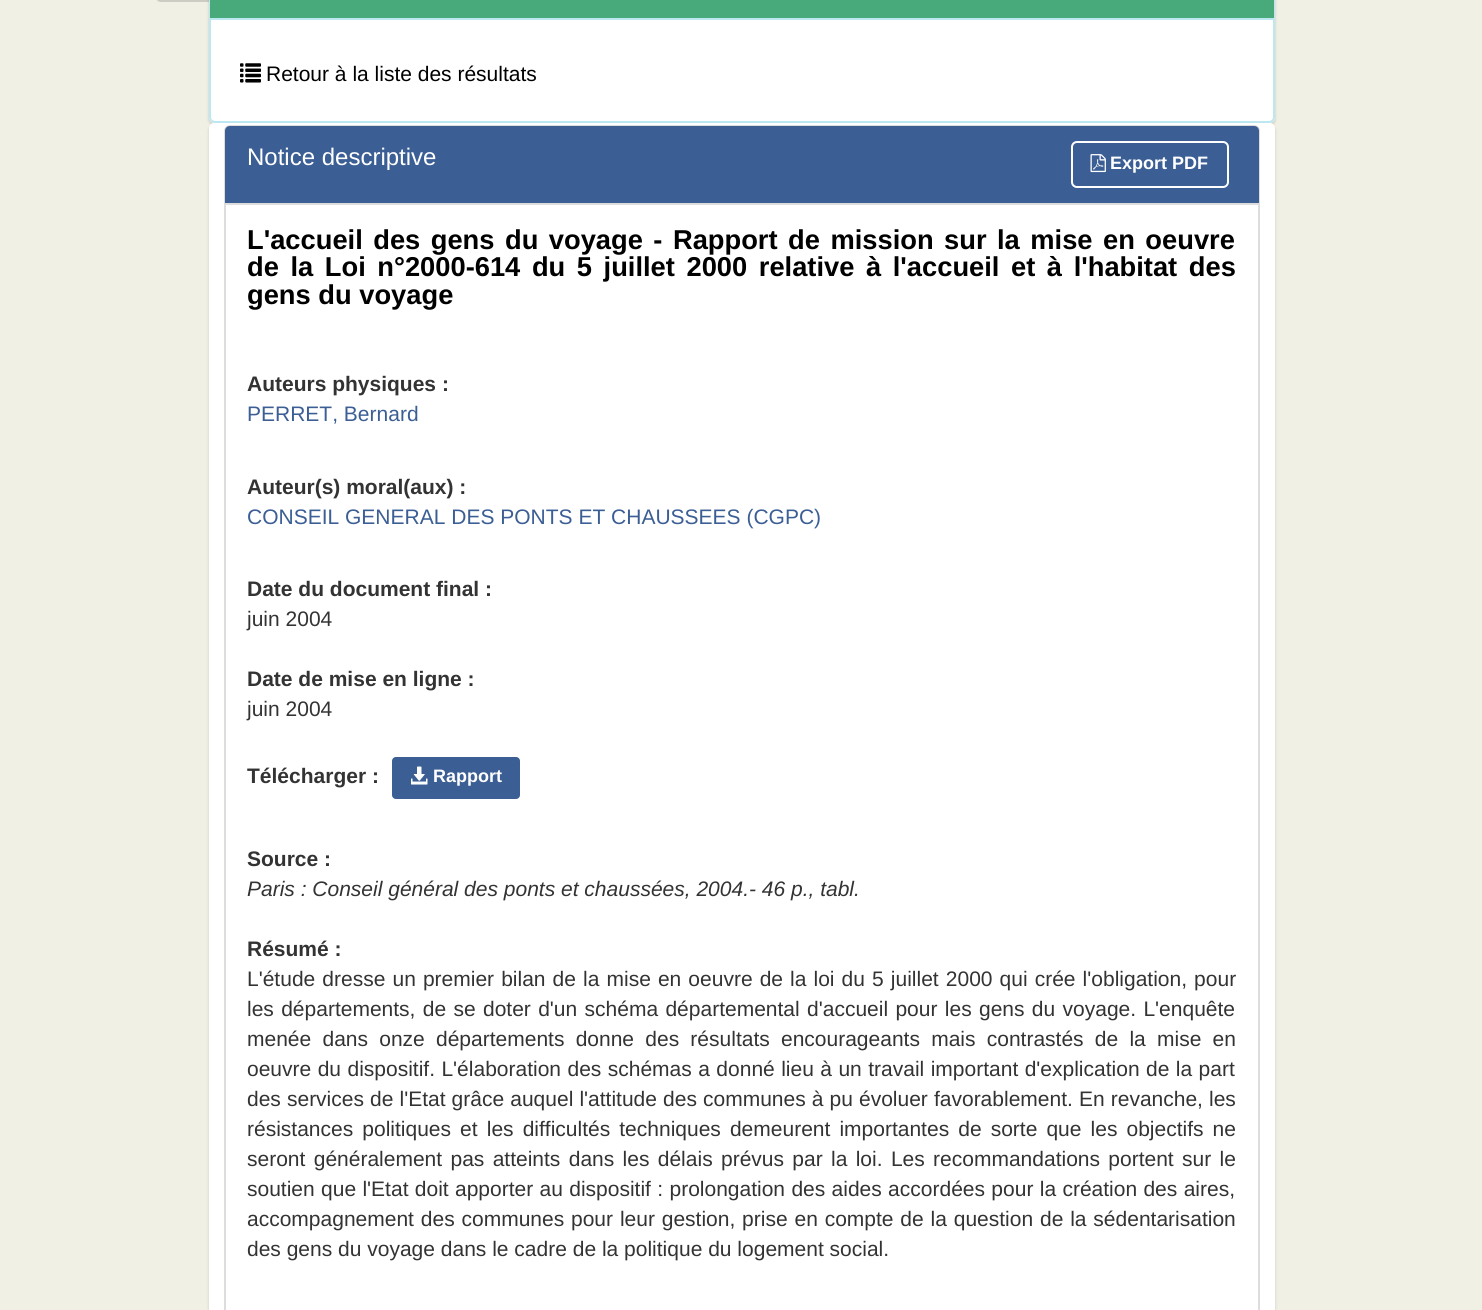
#include <cairo/cairo.h>
#include <math.h>
#include <stddef.h>

static cairo_t *cr;

static void use_color(int r, int g, int b) {
  cairo_set_source_rgb(cr, r / 255.0, g / 255.0, b / 255.0);
}

static void text(double x, double y, const char *s, const char *family, double size, int italic, int bold, int r, int g, int b) {
  cairo_select_font_face(cr, family, italic ? CAIRO_FONT_SLANT_ITALIC : CAIRO_FONT_SLANT_NORMAL,
    bold ? CAIRO_FONT_WEIGHT_BOLD : CAIRO_FONT_WEIGHT_NORMAL);
  cairo_set_font_size(cr, size);
  use_color(r, g, b);
  cairo_move_to(cr, x, y);
  cairo_show_text(cr, s);
}

static void spaced_text(double x, double y, const char *s, double letter, double word) {
  cairo_move_to(cr, x, y);
  while (*s) {
    char ch[5] = {0};
    int n = 0;
    do ch[n++] = *s++; while ((*s & 0xC0) == 0x80);
    cairo_show_text(cr, ch);
    cairo_rel_move_to(cr, letter + word * (*ch == ' '), 0);
  }
}

static void box(double x, double y, double w, double h, int r, int g, int b) {
  use_color(r, g, b);
  cairo_rectangle(cr, x, y, w, h);
  cairo_fill(cr);
}

static void round_rect(double x, double y, double w, double h, double r) {
  cairo_new_sub_path(cr);
  cairo_arc(cr, x + w - r, y + h - r, r, 0, M_PI / 2);
  cairo_arc(cr, x + r, y + h - r, r, M_PI / 2, M_PI);
  cairo_arc(cr, x + r, y + r, r, M_PI, 1.5 * M_PI);
  cairo_arc(cr, x + w - r, y + r, r, 1.5 * M_PI, 2 * M_PI);
  cairo_close_path(cr);
}

static void shadow(double x, double y, double w, double h, double r, double blur, double alpha) {
  cairo_push_group_with_content(cr, CAIRO_CONTENT_ALPHA);
  cairo_set_operator(cr, CAIRO_OPERATOR_SOURCE);
  for (int i = 15; i >= -15 && fmin(w, h) + blur * i / 3 > 0; i -= 2) {
    double e = blur * i / 6;
    cairo_set_source_rgba(cr, 0, 0, 0, alpha * erfc((i - 1) / 8.5) / 2);
    round_rect(x - e, y - e, w + 2 * e, h + 2 * e, fmax(0, fmin(r + e + blur * .6, fmin(w, h) / 2 + e)));
    cairo_fill(cr);
  }
  cairo_pattern_t *soft = cairo_pop_group(cr);
  cairo_mask(cr, soft);
  cairo_pattern_destroy(soft);
}

static void picture(const char *path, double x, double y, double w, double h) {
  cairo_surface_t *image = cairo_image_surface_create_from_png(path);
  cairo_save(cr);
  cairo_set_source_surface(cr, image, x, y);
  cairo_rectangle(cr, x, y, w, h);
  cairo_fill(cr);
  cairo_restore(cr);
  cairo_surface_destroy(image);
}

static void draw(void) {
  use_color(240, 240, 228);
  cairo_paint(cr);
  use_color(204, 204, 194);
  cairo_new_path(cr);
  cairo_move_to(cr, 156, -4);
  cairo_line_to(cr, 156, -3);
  cairo_curve_to(cr, 156, 0, 158, 2, 161, 2);
  cairo_line_to(cr, 212, 2);
  cairo_line_to(cr, 212, -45);
  cairo_line_to(cr, 212, 0);
  cairo_line_to(cr, 160, 0);
  cairo_curve_to(cr, 158, 0, 156, -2, 156, -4);
  cairo_close_path(cr);
  cairo_fill(cr);
  use_color(0, 0, 0);
  shadow(209, -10, 1066, 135, 5, 1.5, 0.15);
  use_color(255, 255, 255);
  round_rect(209, -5, 1066, 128, 5);
  cairo_fill(cr);
  use_color(0, 0, 0);
  shadow(209, -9, 1066, 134, 6, 1, 0.05);
  use_color(255, 255, 255);
  round_rect(210, -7, 1064, 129, 5);
  cairo_fill_preserve(cr);
  use_color(188, 232, 241);
  cairo_stroke(cr);
  box(210, 0, 1064, 18, 72, 169, 122);
  box(210, 18, 1064, 2, 188, 232, 241);
  picture("img_01.png", 240, 63, 21, 20);
  use_color(0, 0, 0);
  shadow(209, 125, 1066, 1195, 5, 1.5, 0.15);
  use_color(255, 255, 255);
  round_rect(209, 123, 1066, 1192, 5);
  cairo_fill(cr);
  round_rect(225, 126, 1034, 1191, 5);
  use_color(221, 221, 221);
  cairo_stroke(cr);
  use_color(59, 94, 148);
  cairo_new_path(cr);
  cairo_move_to(cr, 230, 126);
  cairo_line_to(cr, 1254, 126);
  cairo_curve_to(cr, 1257, 126, 1259, 128, 1259, 131);
  cairo_line_to(cr, 1259, 204);
  cairo_line_to(cr, 225, 204);
  cairo_line_to(cr, 225, 131);
  cairo_curve_to(cr, 225, 128, 227, 126, 230, 126);
  cairo_close_path(cr);
  cairo_fill(cr);
  box(225, 203, 1034, 2, 221, 221, 221);
  round_rect(1072, 142, 156, 45, 5);
  use_color(255, 255, 255);
  cairo_stroke(cr);
  picture("img_02.png", 1090, 154, 16, 19);
  use_color(59, 94, 148);
  round_rect(391, 756, 130, 44, 5);
  cairo_fill_preserve(cr);
  use_color(255, 255, 255);
  cairo_stroke(cr);
  picture("img_03.png", 411, 766, 17, 19);
  text(266, 81, "Retour à la liste des résultats", "Liberation Sans", 21, 0, 0, 0, 0, 0);
  text(247, 165, "Notice descriptive", "Liberation Sans", 24, 0, 0, 255, 255, 255);
  text(1110, 169, "Export PDF", "Liberation Sans", 18, 0, 1, 255, 255, 255);
  cairo_set_font_size(cr, 27.3);
  use_color(0, 0, 0);
  spaced_text(247, 249, "L'accueil des gens du voyage - Rapport de mission sur la mise en oeuvre", 0, 2.9);
  spaced_text(247, 276, "de la Loi n°2000-614 du 5 juillet 2000 relative à l'accueil et à l'habitat des", 0, 4);
  text(247, 304, "gens du voyage", "Liberation Sans", 27.3, 0, 1, 0, 0, 0);
  text(247, 391, "Auteurs physiques :", "Liberation Sans", 21, 0, 1, 51, 51, 51);
  text(247, 421, "PERRET, Bernard", "Liberation Sans", 21, 0, 0, 59, 94, 148);
  text(247, 494, "Auteur(s) moral(aux) :", "Liberation Sans", 21, 0, 1, 51, 51, 51);
  text(247, 524, "CONSEIL GENERAL DES PONTS ET CHAUSSEES (CGPC)", "Liberation Sans", 21, 0, 0, 59, 94, 148);
  text(247, 596, "Date du document final :", "Liberation Sans", 21, 0, 1, 51, 51, 51);
  text(247, 626, "juin 2004", "Liberation Sans", 21, 0, 0, 51, 51, 51);
  text(247, 686, "Date de mise en ligne :", "Liberation Sans", 21, 0, 1, 51, 51, 51);
  text(247, 716, "juin 2004", "Liberation Sans", 21, 0, 0, 51, 51, 51);
  text(247, 783, "Télécharger :", "Liberation Sans", 21, 0, 1, 51, 51, 51);
  text(433, 782, "Rapport", "Liberation Sans", 18, 0, 1, 255, 255, 255);
  text(247, 866, "Source :", "Liberation Sans", 21, 0, 1, 51, 51, 51);
  text(247, 896, "Paris : Conseil général des ponts et chaussées, 2004.- 46 p., tabl.", "Liberation Sans", 21, 1, 0, 51, 51, 51);
  text(247, 956, "Résumé :", "Liberation Sans", 21, 0, 1, 51, 51, 51);
  cairo_select_font_face(cr, "Liberation Sans", CAIRO_FONT_SLANT_NORMAL, CAIRO_FONT_WEIGHT_NORMAL);
  spaced_text(247, 986, "L'étude dresse un premier bilan de la mise en oeuvre de la loi du 5 juillet 2000 qui crée l'obligation, pour", 0, 1.25);
  spaced_text(247, 1016, "les départements, de se doter d'un schéma départemental d'accueil pour les gens du voyage. L'enquête", 0, 1.5);
  spaced_text(247, 1046, "menée dans onze départements donne des résultats encourageants mais contrastés de la mise en", 0, 5.4);
  spaced_text(247, 1076, "oeuvre du dispositif. L'élaboration des schémas a donné lieu à un travail important d'explication de la part", 0, 0.6);
  spaced_text(247, 1106, "des services de l'Etat grâce auquel l'attitude des communes à pu évoluer favorablement. En revanche, les", 0, 0.25);
  spaced_text(247, 1136, "résistances politiques et les difficultés techniques demeurent importantes de sorte que les objectifs ne", 0, 3.25);
  spaced_text(247, 1166, "seront généralement pas atteints dans les délais prévus par la loi. Les recommandations portent sur le", 0, 2.5);
  spaced_text(247, 1196, "soutien que l'Etat doit apporter au dispositif : prolongation des aides accordées pour la création des aires,", 0, 0.5);
  spaced_text(247, 1226, "accompagnement des communes pour leur gestion, prise en compte de la question de la sédentarisation", 0, 1);
  text(247, 1256, "des gens du voyage dans le cadre de la politique du logement social.", "Liberation Sans", 21, 0, 0, 51, 51, 51);
}

int main(void) {
  cairo_surface_t *surface = cairo_image_surface_create(CAIRO_FORMAT_RGB24, 1482, 1310);
  cr = cairo_create(surface);
  cairo_font_options_t *options = cairo_font_options_create();
  cairo_font_options_set_hint_metrics(options, CAIRO_HINT_METRICS_OFF);
  cairo_font_options_set_hint_style(options, CAIRO_HINT_STYLE_NONE);
  cairo_set_font_options(cr, options);
  cairo_set_miter_limit(cr, 4);
  draw();
  cairo_surface_write_to_png(surface, "out.png");
  cairo_font_options_destroy(options);
  cairo_destroy(cr);
  cairo_surface_destroy(surface);
  return 0;
}
